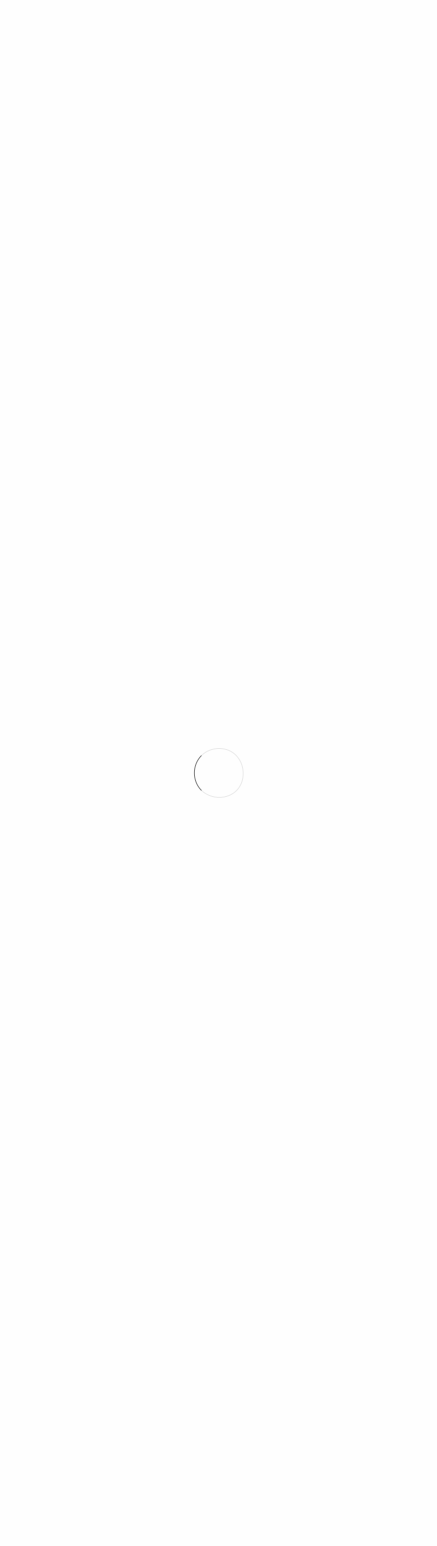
#include <cairo/cairo.h>
#include <math.h>
#include <stddef.h>

static cairo_t *cr;

static void use_color(int r, int g, int b) {
  cairo_set_source_rgb(cr, r / 255.0, g / 255.0, b / 255.0);
}

static void draw(void) {
  use_color(254, 254, 254);
  cairo_paint(cr);
  cairo_new_path(cr);
  cairo_move_to(cr, 201.5, 755.5);
  cairo_curve_to(cr, 206, 751, 212.5, 748.5, 219, 748.5);
  cairo_curve_to(cr, 248, 748.5, 252.5, 791.5, 224, 797);
  cairo_curve_to(cr, 216, 798.5, 207.5, 796, 201.5, 790.5);
  use_color(234, 234, 234);
  cairo_set_line_width(cr, 1);
  cairo_stroke(cr);
  cairo_new_path(cr);
  cairo_move_to(cr, 201.5, 790.5);
  cairo_curve_to(cr, 192, 781, 192, 765, 201.5, 755.5);
  use_color(127, 127, 127);
  cairo_stroke(cr);
}

int main(void) {
  cairo_surface_t *surface = cairo_image_surface_create(CAIRO_FORMAT_RGB24, 437, 1546);
  cr = cairo_create(surface);
  cairo_font_options_t *options = cairo_font_options_create();
  cairo_font_options_set_hint_metrics(options, CAIRO_HINT_METRICS_OFF);
  cairo_font_options_set_hint_style(options, CAIRO_HINT_STYLE_NONE);
  cairo_set_font_options(cr, options);
  cairo_set_miter_limit(cr, 4);
  draw();
  cairo_surface_write_to_png(surface, "out.png");
  cairo_font_options_destroy(options);
  cairo_destroy(cr);
  cairo_surface_destroy(surface);
  return 0;
}
